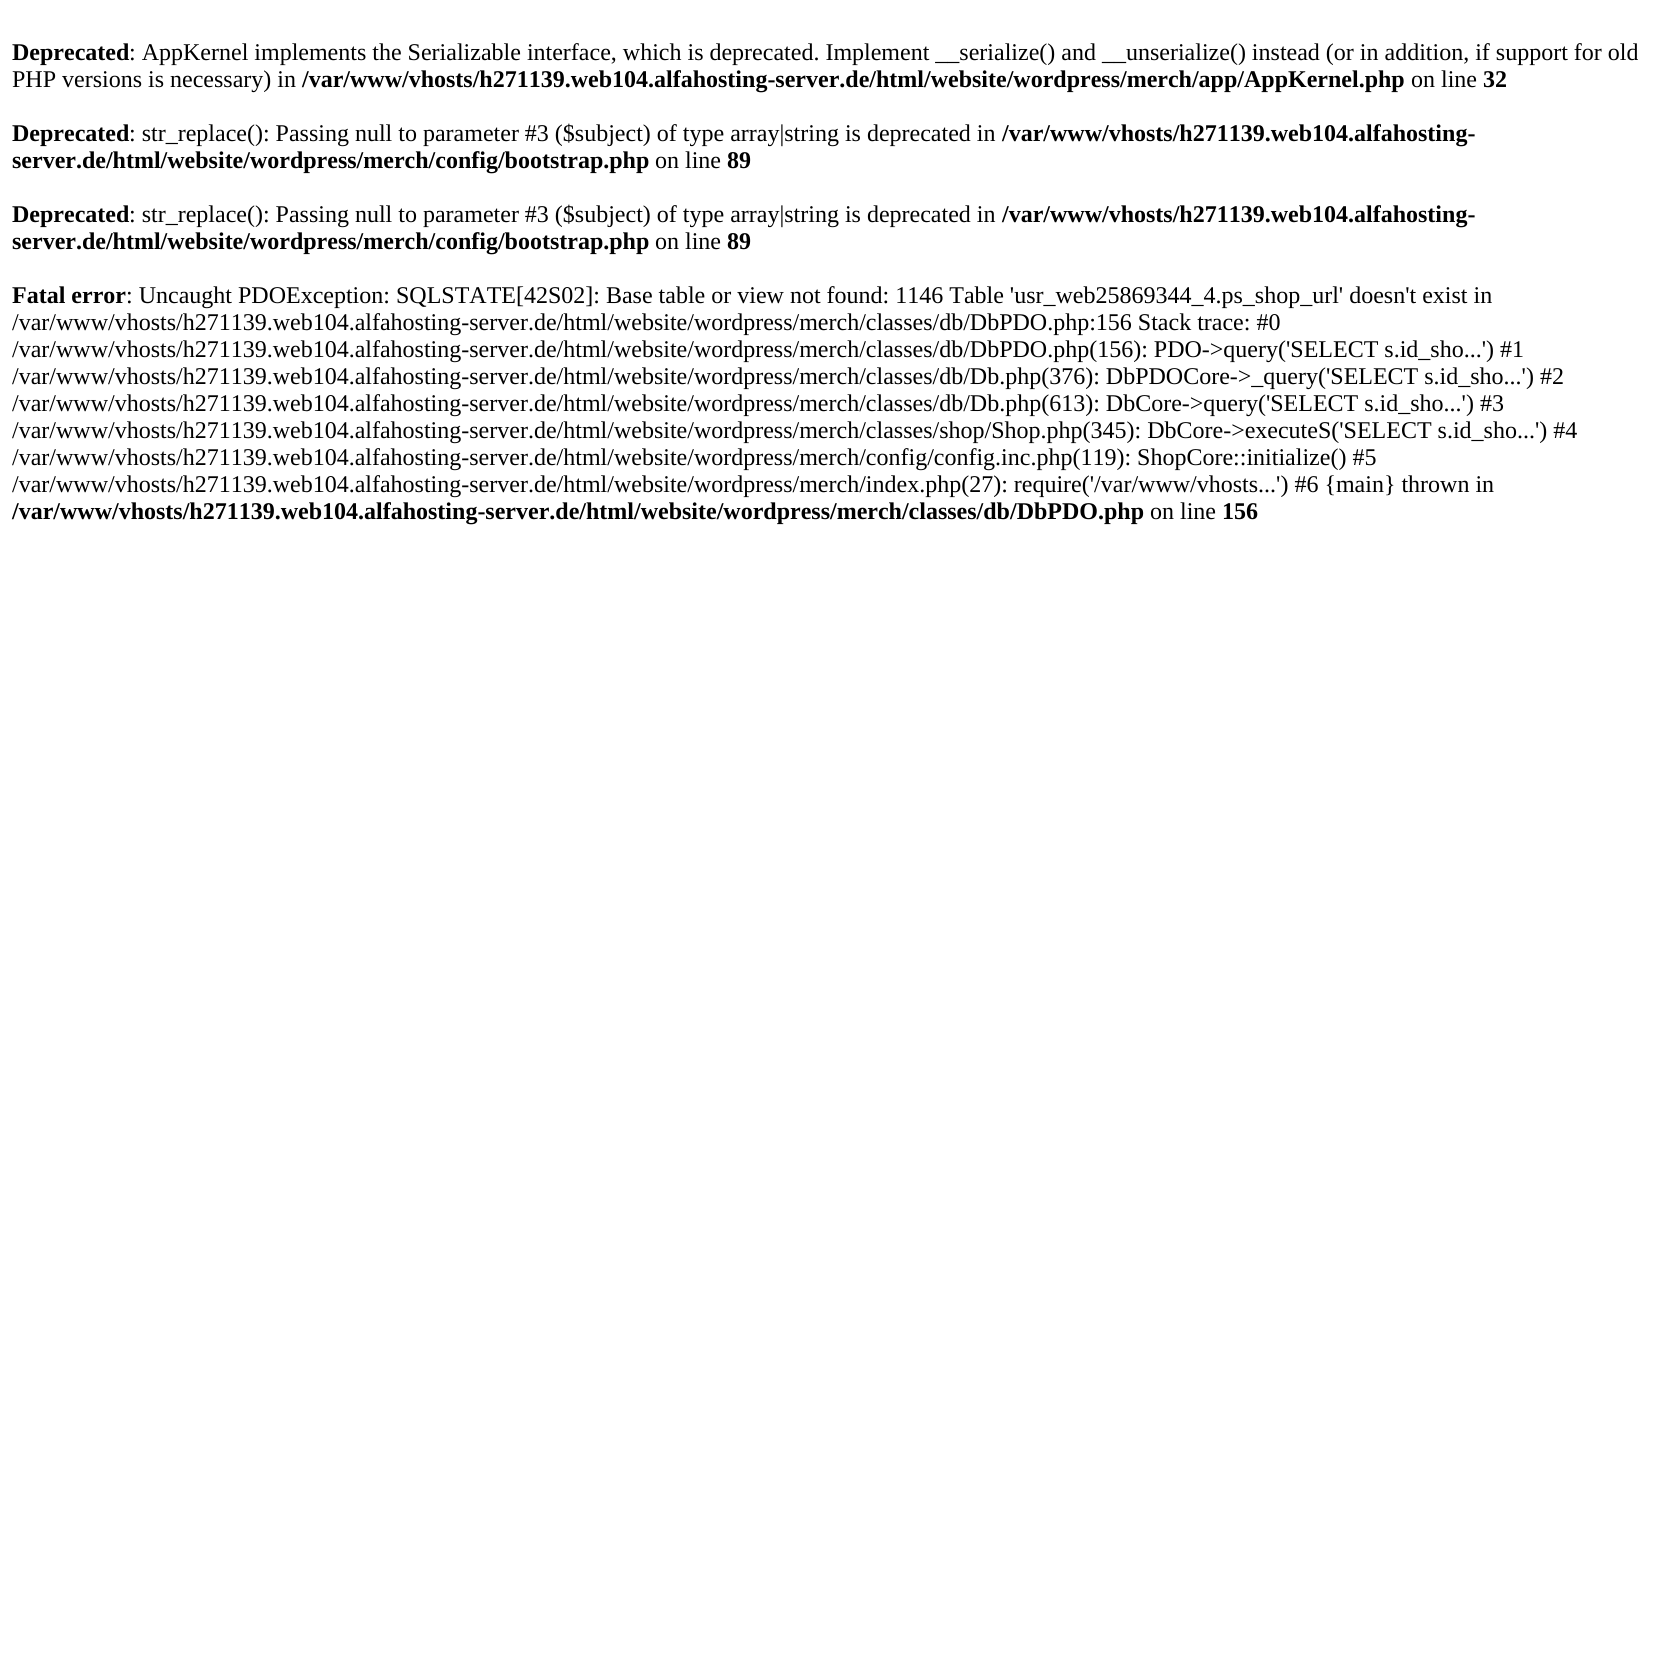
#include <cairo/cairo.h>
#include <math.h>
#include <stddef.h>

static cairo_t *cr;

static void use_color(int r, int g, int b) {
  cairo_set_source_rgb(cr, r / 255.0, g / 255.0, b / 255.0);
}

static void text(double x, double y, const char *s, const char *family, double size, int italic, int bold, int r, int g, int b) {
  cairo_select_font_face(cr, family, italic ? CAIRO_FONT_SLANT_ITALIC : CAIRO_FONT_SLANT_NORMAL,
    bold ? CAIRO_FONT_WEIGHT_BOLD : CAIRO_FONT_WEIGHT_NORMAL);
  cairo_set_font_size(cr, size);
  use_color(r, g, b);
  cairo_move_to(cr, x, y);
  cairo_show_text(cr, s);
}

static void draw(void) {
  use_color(255, 255, 255);
  cairo_paint(cr);
  text(12, 60, "Deprecated", "Liberation Serif", 24, 0, 1, 0, 0, 0);
  text(129, 60, ": AppKernel implements the Serializable interface, which is deprecated. Implement __serialize() and __unserialize() instead (or in addition, if support for old", "Liberation Serif", 24, 0, 0, 0, 0, 0);
  text(12, 87, "PHP versions is necessary) in", "Liberation Serif", 24, 0, 0, 0, 0, 0);
  text(302, 87, "/var/www/vhosts/h271139.web104.alfahosting-server.de/html/website/wordpress/merch/app/AppKernel.php", "Liberation Serif", 24, 0, 1, 0, 0, 0);
  text(1411, 87, "on line", "Liberation Serif", 24, 0, 0, 0, 0, 0);
  text(1483, 87, "32", "Liberation Serif", 24, 0, 1, 0, 0, 0);
  text(12, 141, "Deprecated", "Liberation Serif", 24, 0, 1, 0, 0, 0);
  text(129, 141, ": str_replace(): Passing null to parameter #3 ($subject) of type array|string is deprecated in", "Liberation Serif", 24, 0, 0, 0, 0, 0);
  text(1002, 141, "/var/www/vhosts/h271139.web104.alfahosting-", "Liberation Serif", 24, 0, 1, 0, 0, 0);
  text(12, 168, "server.de/html/website/wordpress/merch/config/bootstrap.php", "Liberation Serif", 24, 0, 1, 0, 0, 0);
  text(655, 168, "on line", "Liberation Serif", 24, 0, 0, 0, 0, 0);
  text(727, 168, "89", "Liberation Serif", 24, 0, 1, 0, 0, 0);
  text(12, 222, "Deprecated", "Liberation Serif", 24, 0, 1, 0, 0, 0);
  text(129, 222, ": str_replace(): Passing null to parameter #3 ($subject) of type array|string is deprecated in", "Liberation Serif", 24, 0, 0, 0, 0, 0);
  text(1002, 222, "/var/www/vhosts/h271139.web104.alfahosting-", "Liberation Serif", 24, 0, 1, 0, 0, 0);
  text(12, 249, "server.de/html/website/wordpress/merch/config/bootstrap.php", "Liberation Serif", 24, 0, 1, 0, 0, 0);
  text(655, 249, "on line", "Liberation Serif", 24, 0, 0, 0, 0, 0);
  text(727, 249, "89", "Liberation Serif", 24, 0, 1, 0, 0, 0);
  text(12, 303, "Fatal error", "Liberation Serif", 24, 0, 1, 0, 0, 0);
  text(126, 303, ": Uncaught PDOException: SQLSTATE[42S02]: Base table or view not found: 1146 Table 'usr_web25869344_4.ps_shop_url' doesn't exist in", "Liberation Serif", 24, 0, 0, 0, 0, 0);
  text(12, 330, "/var/www/vhosts/h271139.web104.alfahosting-server.de/html/website/wordpress/merch/classes/db/DbPDO.php:156 Stack trace: #0", "Liberation Serif", 24, 0, 0, 0, 0, 0);
  text(12, 357, "/var/www/vhosts/h271139.web104.alfahosting-server.de/html/website/wordpress/merch/classes/db/DbPDO.php(156): PDO->query('SELECT s.id_sho...') #1", "Liberation Serif", 24, 0, 0, 0, 0, 0);
  text(12, 384, "/var/www/vhosts/h271139.web104.alfahosting-server.de/html/website/wordpress/merch/classes/db/Db.php(376): DbPDOCore->_query('SELECT s.id_sho...') #2", "Liberation Serif", 24, 0, 0, 0, 0, 0);
  text(12, 411, "/var/www/vhosts/h271139.web104.alfahosting-server.de/html/website/wordpress/merch/classes/db/Db.php(613): DbCore->query('SELECT s.id_sho...') #3", "Liberation Serif", 24, 0, 0, 0, 0, 0);
  text(12, 438, "/var/www/vhosts/h271139.web104.alfahosting-server.de/html/website/wordpress/merch/classes/shop/Shop.php(345): DbCore->executeS('SELECT s.id_sho...') #4", "Liberation Serif", 24, 0, 0, 0, 0, 0);
  text(12, 465, "/var/www/vhosts/h271139.web104.alfahosting-server.de/html/website/wordpress/merch/config/config.inc.php(119): ShopCore::initialize() #5", "Liberation Serif", 24, 0, 0, 0, 0, 0);
  text(12, 492, "/var/www/vhosts/h271139.web104.alfahosting-server.de/html/website/wordpress/merch/index.php(27): require('/var/www/vhosts...') #6 {main} thrown in", "Liberation Serif", 24, 0, 0, 0, 0, 0);
  text(12, 519, "/var/www/vhosts/h271139.web104.alfahosting-server.de/html/website/wordpress/merch/classes/db/DbPDO.php", "Liberation Serif", 24, 0, 1, 0, 0, 0);
  text(1150, 519, "on line", "Liberation Serif", 24, 0, 0, 0, 0, 0);
  text(1222, 519, "156", "Liberation Serif", 24, 0, 1, 0, 0, 0);
}

int main(void) {
  cairo_surface_t *surface = cairo_image_surface_create(CAIRO_FORMAT_RGB24, 1668, 1675);
  cr = cairo_create(surface);
  cairo_font_options_t *options = cairo_font_options_create();
  cairo_font_options_set_hint_metrics(options, CAIRO_HINT_METRICS_OFF);
  cairo_font_options_set_hint_style(options, CAIRO_HINT_STYLE_NONE);
  cairo_set_font_options(cr, options);
  cairo_set_miter_limit(cr, 4);
  draw();
  cairo_surface_write_to_png(surface, "out.png");
  cairo_font_options_destroy(options);
  cairo_destroy(cr);
  cairo_surface_destroy(surface);
  return 0;
}
